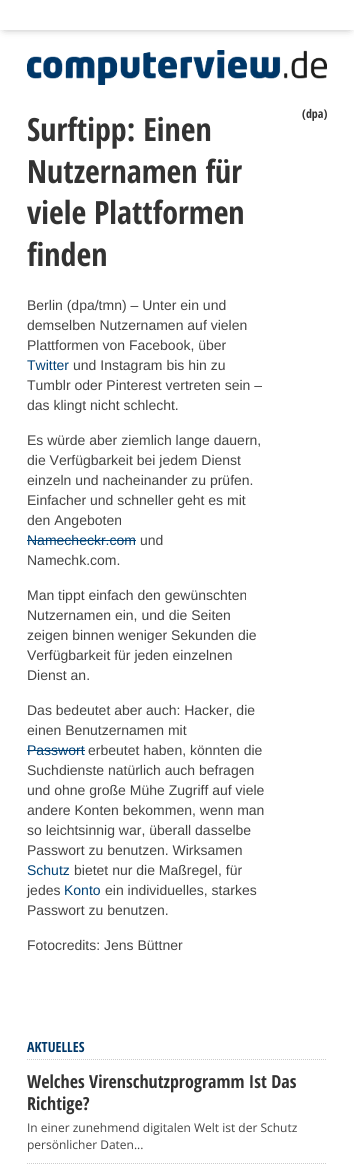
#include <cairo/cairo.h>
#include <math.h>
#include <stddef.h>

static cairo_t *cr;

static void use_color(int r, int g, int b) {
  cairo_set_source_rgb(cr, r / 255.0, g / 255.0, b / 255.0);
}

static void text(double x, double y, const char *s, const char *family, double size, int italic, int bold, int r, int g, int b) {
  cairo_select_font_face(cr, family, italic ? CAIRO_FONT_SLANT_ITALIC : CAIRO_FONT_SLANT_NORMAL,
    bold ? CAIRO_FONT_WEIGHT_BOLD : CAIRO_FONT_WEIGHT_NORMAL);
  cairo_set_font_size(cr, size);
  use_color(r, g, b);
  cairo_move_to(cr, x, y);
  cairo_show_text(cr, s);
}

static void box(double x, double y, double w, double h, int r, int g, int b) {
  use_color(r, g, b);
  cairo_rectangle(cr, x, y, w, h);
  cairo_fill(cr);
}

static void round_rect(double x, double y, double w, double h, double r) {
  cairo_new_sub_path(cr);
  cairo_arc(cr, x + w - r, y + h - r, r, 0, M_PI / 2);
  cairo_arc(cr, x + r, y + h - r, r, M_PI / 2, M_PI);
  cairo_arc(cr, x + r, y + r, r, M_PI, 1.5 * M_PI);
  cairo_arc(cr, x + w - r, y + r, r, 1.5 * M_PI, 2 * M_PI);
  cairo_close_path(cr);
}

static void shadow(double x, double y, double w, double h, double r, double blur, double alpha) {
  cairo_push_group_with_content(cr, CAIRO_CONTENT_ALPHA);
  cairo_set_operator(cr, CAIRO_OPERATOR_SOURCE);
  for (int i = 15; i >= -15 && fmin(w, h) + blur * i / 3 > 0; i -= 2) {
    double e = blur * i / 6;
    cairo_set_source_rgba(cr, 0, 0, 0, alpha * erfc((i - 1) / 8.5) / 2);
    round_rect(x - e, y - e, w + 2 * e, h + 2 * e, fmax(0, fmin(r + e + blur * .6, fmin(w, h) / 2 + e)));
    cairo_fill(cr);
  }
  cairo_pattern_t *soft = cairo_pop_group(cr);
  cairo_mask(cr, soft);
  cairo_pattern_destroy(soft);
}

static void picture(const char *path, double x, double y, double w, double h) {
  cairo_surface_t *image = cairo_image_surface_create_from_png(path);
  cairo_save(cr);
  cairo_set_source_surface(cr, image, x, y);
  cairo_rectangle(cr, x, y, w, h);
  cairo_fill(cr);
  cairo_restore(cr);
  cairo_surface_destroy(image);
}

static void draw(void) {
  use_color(255, 255, 255);
  cairo_paint(cr);
  use_color(85, 85, 85);
  shadow(5, 6, 344, 20, 0, 5, 1);
  box(0, 0, 354, 30, 255, 255, 255);
  picture("img_01.png", 27, 50, 300, 35);
  box(27, 540, 109, 1, 0, 66, 118);
  box(27, 750, 58, 1, 0, 66, 118);
  cairo_new_path(cr);
  cairo_move_to(cr, 27, 1059.5);
  cairo_line_to(cr, 327, 1059.5);
  use_color(204, 204, 204);
  cairo_set_line_width(cr, 1);
  cairo_set_dash(cr, (double[]){1, 1}, 2, 0);
  cairo_stroke(cr);
  cairo_new_path(cr);
  cairo_move_to(cr, 27, 1163.5);
  cairo_line_to(cr, 327, 1163.5);
  cairo_stroke(cr);
  text(302, 118, "(dpa)", "Open Sans Condensed", 12, 0, 1, 51, 51, 51);
  text(27, 141, "Surftipp: Einen", "Open Sans Condensed", 32, 0, 1, 51, 51, 51);
  text(27, 183, "Nutzernamen für", "Open Sans Condensed", 32, 0, 1, 51, 51, 51);
  text(27, 224, "viele Plattformen", "Open Sans Condensed", 32, 0, 1, 51, 51, 51);
  text(27, 266, "finden", "Open Sans Condensed", 32, 0, 1, 51, 51, 51);
  text(27, 310, "Berlin (dpa/tmn) – Unter ein und", "Liberation Sans", 14, 0, 0, 68, 68, 68);
  text(27, 330, "demselben Nutzernamen auf vielen", "Liberation Sans", 14, 0, 0, 68, 68, 68);
  text(27, 350, "Plattformen von Facebook, über", "Liberation Sans", 14, 0, 0, 68, 68, 68);
  text(27, 370, "Twitter", "Liberation Sans", 14, 0, 0, 0, 66, 118);
  text(73, 370, "und Instagram bis hin zu", "Liberation Sans", 14, 0, 0, 68, 68, 68);
  text(27, 390, "Tumblr oder Pinterest vertreten sein –", "Liberation Sans", 14, 0, 0, 68, 68, 68);
  text(27, 410, "das klingt nicht schlecht.", "Liberation Sans", 14, 0, 0, 68, 68, 68);
  text(27, 445, "Es würde aber ziemlich lange dauern,", "Liberation Sans", 14, 0, 0, 68, 68, 68);
  text(27, 465, "die Verfügbarkeit bei jedem Dienst", "Liberation Sans", 14, 0, 0, 68, 68, 68);
  text(27, 485, "einzeln und nacheinander zu prüfen.", "Liberation Sans", 14, 0, 0, 68, 68, 68);
  text(27, 505, "Einfacher und schneller geht es mit", "Liberation Sans", 14, 0, 0, 68, 68, 68);
  text(27, 525, "den Angeboten", "Liberation Sans", 14, 0, 0, 68, 68, 68);
  text(27, 545, "Namecheckr.com", "Liberation Sans", 14, 0, 0, 0, 66, 118);
  text(140, 545, "und", "Liberation Sans", 14, 0, 0, 68, 68, 68);
  text(27, 565, "Namechk.com.", "Liberation Sans", 14, 0, 0, 68, 68, 68);
  text(27, 600, "Man tippt einfach den gewünschten", "Liberation Sans", 14, 0, 0, 68, 68, 68);
  text(27, 620, "Nutzernamen ein, und die Seiten", "Liberation Sans", 14, 0, 0, 68, 68, 68);
  text(27, 640, "zeigen binnen weniger Sekunden die", "Liberation Sans", 14, 0, 0, 68, 68, 68);
  text(27, 660, "Verfügbarkeit für jeden einzelnen", "Liberation Sans", 14, 0, 0, 68, 68, 68);
  text(27, 680, "Dienst an.", "Liberation Sans", 14, 0, 0, 68, 68, 68);
  text(27, 715, "Das bedeutet aber auch: Hacker, die", "Liberation Sans", 14, 0, 0, 68, 68, 68);
  text(27, 735, "einen Benutzernamen mit", "Liberation Sans", 14, 0, 0, 68, 68, 68);
  text(27, 755, "Passwort", "Liberation Sans", 14, 0, 0, 0, 66, 118);
  text(88, 755, "erbeutet haben, könnten die", "Liberation Sans", 14, 0, 0, 68, 68, 68);
  text(27, 775, "Suchdienste natürlich auch befragen", "Liberation Sans", 14, 0, 0, 68, 68, 68);
  text(27, 795, "und ohne große Mühe Zugriff auf viele", "Liberation Sans", 14, 0, 0, 68, 68, 68);
  text(27, 815, "andere Konten bekommen, wenn man", "Liberation Sans", 14, 0, 0, 68, 68, 68);
  text(27, 835, "so leichtsinnig war, überall dasselbe", "Liberation Sans", 14, 0, 0, 68, 68, 68);
  text(27, 855, "Passwort zu benutzen. Wirksamen", "Liberation Sans", 14, 0, 0, 68, 68, 68);
  text(27, 875, "Schutz", "Liberation Sans", 14, 0, 0, 0, 66, 118);
  text(74, 875, "bietet nur die Maßregel, für", "Liberation Sans", 14, 0, 0, 68, 68, 68);
  text(27, 895, "jedes", "Liberation Sans", 14, 0, 0, 68, 68, 68);
  text(64, 895, "Konto", "Liberation Sans", 14, 0, 0, 0, 66, 118);
  text(105, 895, "ein individuelles, starkes", "Liberation Sans", 14, 0, 0, 68, 68, 68);
  text(27, 915, "Passwort zu benutzen.", "Liberation Sans", 14, 0, 0, 68, 68, 68);
  text(27, 950, "Fotocredits: Jens Büttner", "Liberation Sans", 14, 0, 0, 68, 68, 68);
  text(27, 1052, "AKTUELLES", "Open Sans Condensed", 14, 0, 1, 0, 56, 105);
  text(27, 1088, "Welches Virenschutzprogramm Ist Das", "Open Sans Condensed", 18, 0, 1, 51, 51, 51);
  text(27, 1110, "Richtige?", "Open Sans Condensed", 18, 0, 1, 51, 51, 51);
  text(27, 1132, "In einer zunehmend digitalen Welt ist der Schutz", "Open Sans", 12, 0, 0, 68, 68, 68);
  text(27, 1149, "persönlicher Daten...", "Open Sans", 12, 0, 0, 68, 68, 68);
}

int main(void) {
  cairo_surface_t *surface = cairo_image_surface_create(CAIRO_FORMAT_RGB24, 354, 1167);
  cr = cairo_create(surface);
  cairo_font_options_t *options = cairo_font_options_create();
  cairo_font_options_set_hint_metrics(options, CAIRO_HINT_METRICS_OFF);
  cairo_font_options_set_hint_style(options, CAIRO_HINT_STYLE_NONE);
  cairo_set_font_options(cr, options);
  cairo_set_miter_limit(cr, 4);
  draw();
  cairo_surface_write_to_png(surface, "out.png");
  cairo_font_options_destroy(options);
  cairo_destroy(cr);
  cairo_surface_destroy(surface);
  return 0;
}
